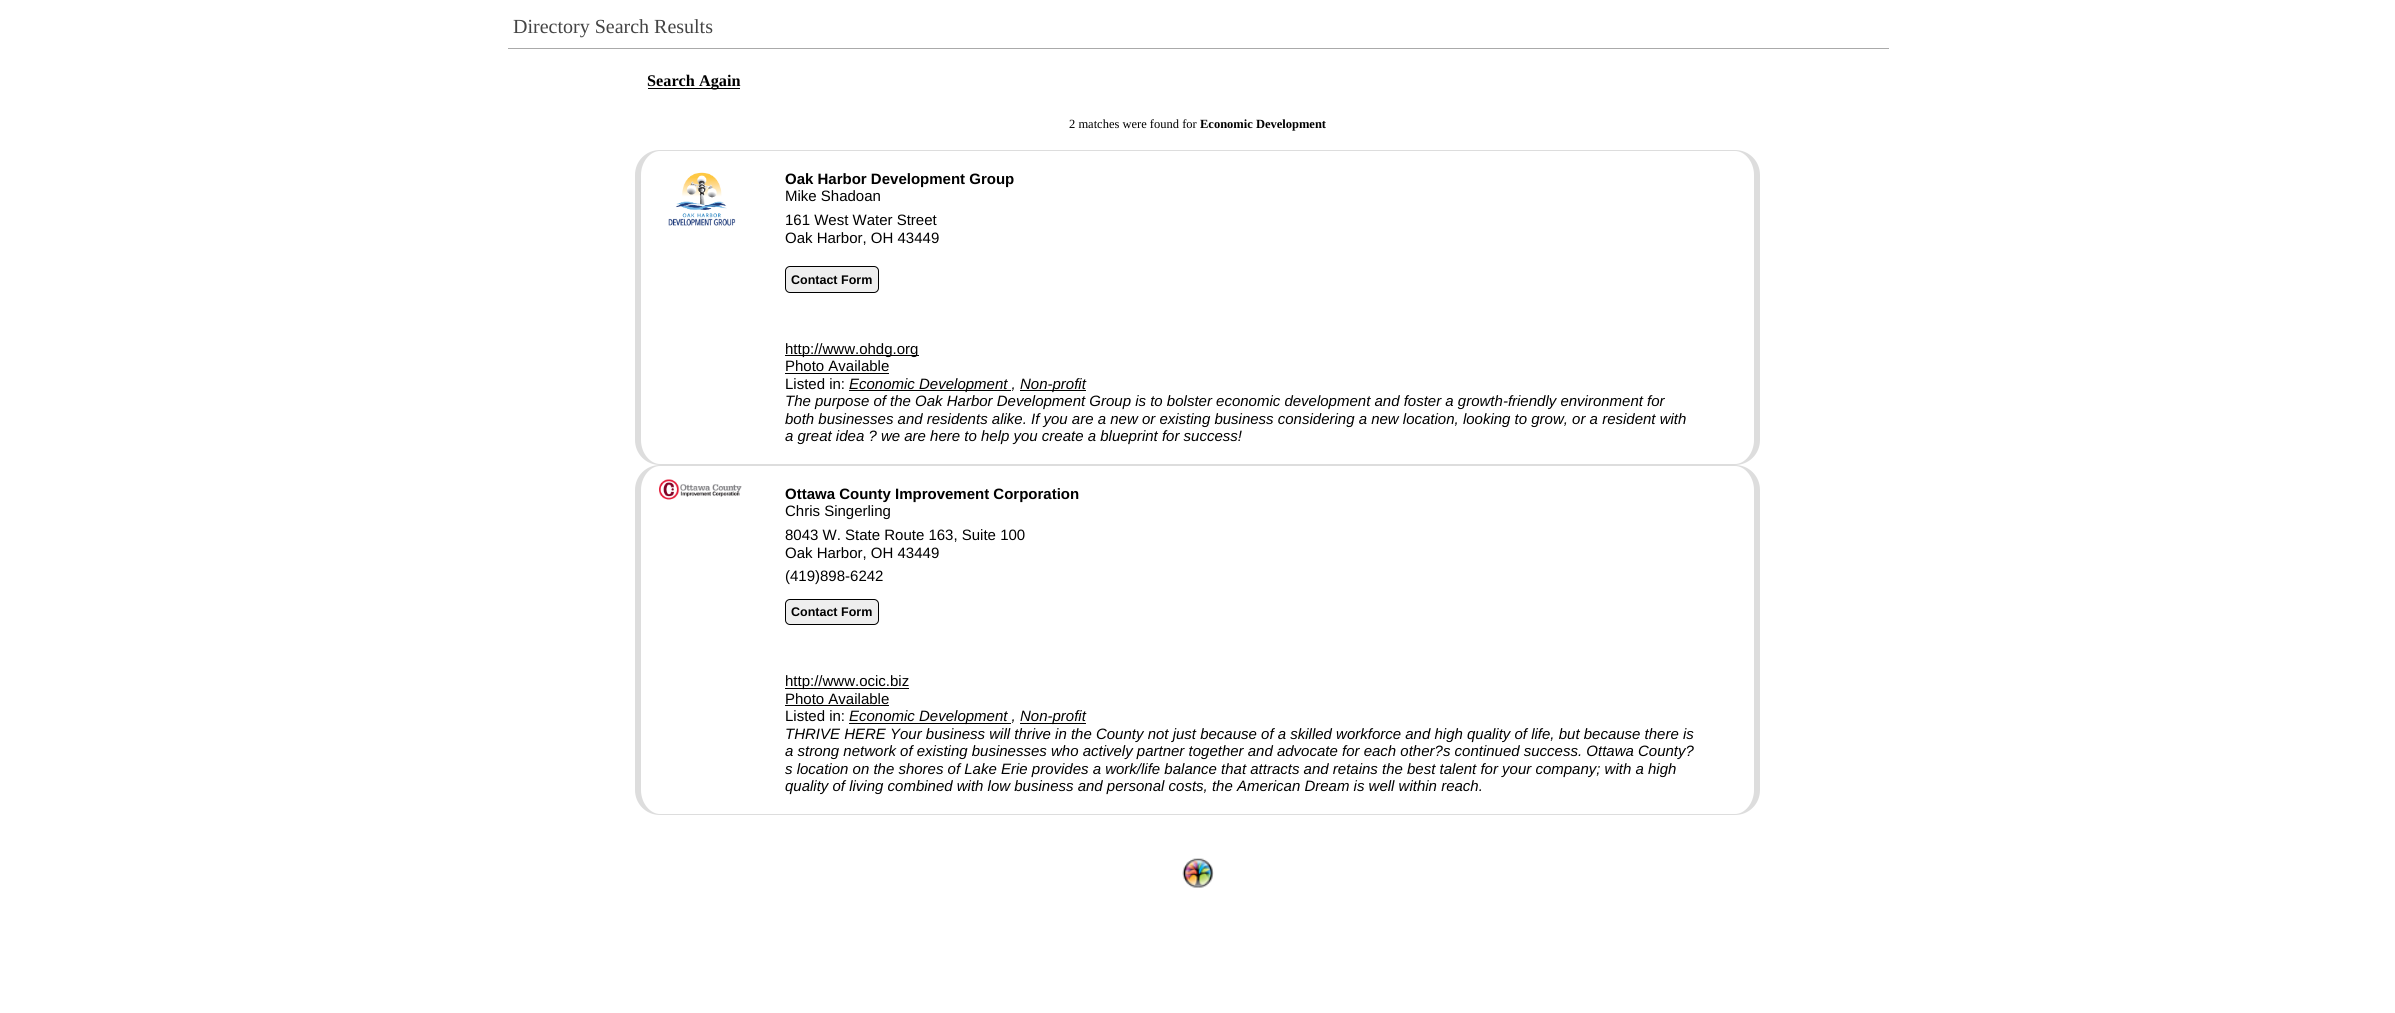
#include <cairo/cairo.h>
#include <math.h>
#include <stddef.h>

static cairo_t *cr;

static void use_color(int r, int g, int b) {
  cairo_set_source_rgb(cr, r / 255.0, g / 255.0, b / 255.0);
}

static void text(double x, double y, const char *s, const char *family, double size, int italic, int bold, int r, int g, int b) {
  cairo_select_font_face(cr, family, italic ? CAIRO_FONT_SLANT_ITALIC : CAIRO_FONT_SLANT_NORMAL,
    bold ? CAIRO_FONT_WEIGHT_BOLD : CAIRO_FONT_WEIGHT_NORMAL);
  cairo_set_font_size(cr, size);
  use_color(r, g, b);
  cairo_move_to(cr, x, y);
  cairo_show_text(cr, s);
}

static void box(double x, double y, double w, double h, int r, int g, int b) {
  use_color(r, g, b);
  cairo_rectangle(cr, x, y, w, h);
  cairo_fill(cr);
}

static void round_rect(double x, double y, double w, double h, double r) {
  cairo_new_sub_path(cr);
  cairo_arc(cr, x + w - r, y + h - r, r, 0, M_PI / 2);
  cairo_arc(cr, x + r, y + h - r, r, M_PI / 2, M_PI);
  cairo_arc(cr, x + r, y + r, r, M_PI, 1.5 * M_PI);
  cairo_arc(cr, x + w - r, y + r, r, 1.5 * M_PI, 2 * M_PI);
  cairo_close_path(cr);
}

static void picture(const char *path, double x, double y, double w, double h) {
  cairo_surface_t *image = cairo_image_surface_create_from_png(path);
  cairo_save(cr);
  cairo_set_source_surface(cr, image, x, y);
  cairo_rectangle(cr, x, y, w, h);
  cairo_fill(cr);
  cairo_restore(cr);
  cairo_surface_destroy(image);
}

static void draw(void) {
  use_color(255, 255, 255);
  cairo_paint(cr);
  box(508, 48, 1381, 1, 170, 170, 170);
  box(648, 88, 92, 1, 0, 0, 0);
  use_color(221, 221, 221);
  cairo_set_fill_rule(cr, CAIRO_FILL_RULE_EVEN_ODD);
  cairo_new_path(cr);
  cairo_move_to(cr, 660, 150);
  cairo_line_to(cr, 766, 150);
  cairo_line_to(cr, 766, 465);
  cairo_line_to(cr, 660, 465);
  cairo_curve_to(cr, 646, 465, 635, 454, 635, 440);
  cairo_line_to(cr, 635, 175);
  cairo_curve_to(cr, 635, 161, 646, 150, 660, 150);
  cairo_close_path(cr);
  cairo_move_to(cr, 660, 151);
  cairo_line_to(cr, 766, 151);
  cairo_line_to(cr, 766, 464);
  cairo_line_to(cr, 660, 464);
  cairo_curve_to(cr, 650, 464, 641, 453, 641, 440);
  cairo_line_to(cr, 641, 175);
  cairo_curve_to(cr, 641, 162, 650, 151, 660, 151);
  cairo_close_path(cr);
  cairo_fill(cr);
  picture("img_01.png", 668, 172, 68, 54);
  box(766, 150, 950, 1, 221, 221, 221);
  box(766, 464, 950, 2, 221, 221, 221);
  use_color(238, 238, 238);
  round_rect(785.5, 266.5, 93, 26, 4.5);
  cairo_fill_preserve(cr);
  use_color(0, 0, 0);
  cairo_set_line_width(cr, 1);
  cairo_stroke(cr);
  box(785, 355, 134, 1, 0, 0, 0);
  box(785, 373, 104, 1, 0, 0, 0);
  box(849, 390, 162, 1, 0, 0, 0);
  box(1020, 390, 66, 1, 0, 0, 0);
  use_color(221, 221, 221);
  cairo_new_path(cr);
  cairo_move_to(cr, 1716, 150);
  cairo_line_to(cr, 1735, 150);
  cairo_curve_to(cr, 1749, 150, 1760, 161, 1760, 175);
  cairo_line_to(cr, 1760, 440);
  cairo_curve_to(cr, 1760, 454, 1749, 465, 1735, 465);
  cairo_line_to(cr, 1716, 465);
  cairo_close_path(cr);
  cairo_move_to(cr, 1716, 151);
  cairo_line_to(cr, 1735, 151);
  cairo_curve_to(cr, 1745, 151, 1754, 162, 1754, 175);
  cairo_line_to(cr, 1754, 440);
  cairo_curve_to(cr, 1754, 453, 1745, 464, 1735, 464);
  cairo_line_to(cr, 1716, 464);
  cairo_close_path(cr);
  cairo_fill(cr);
  cairo_new_path(cr);
  cairo_move_to(cr, 660, 465);
  cairo_line_to(cr, 766, 465);
  cairo_line_to(cr, 766, 815);
  cairo_line_to(cr, 660, 815);
  cairo_curve_to(cr, 646, 815, 635, 804, 635, 790);
  cairo_line_to(cr, 635, 490);
  cairo_curve_to(cr, 635, 476, 646, 465, 660, 465);
  cairo_close_path(cr);
  cairo_move_to(cr, 660, 466);
  cairo_line_to(cr, 766, 466);
  cairo_line_to(cr, 766, 814);
  cairo_line_to(cr, 660, 814);
  cairo_curve_to(cr, 650, 814, 641, 803, 641, 790);
  cairo_line_to(cr, 641, 490);
  cairo_curve_to(cr, 641, 477, 650, 466, 660, 466);
  cairo_close_path(cr);
  cairo_fill(cr);
  picture("img_02.png", 659, 479, 83, 21);
  box(766, 814, 950, 1, 221, 221, 221);
  use_color(238, 238, 238);
  round_rect(785.5, 599.5, 93, 25, 4.5);
  cairo_fill_preserve(cr);
  use_color(0, 0, 0);
  cairo_stroke(cr);
  box(785, 688, 124, 1, 0, 0, 0);
  box(785, 705, 104, 1, 0, 0, 0);
  box(849, 723, 162, 1, 0, 0, 0);
  box(1020, 723, 66, 1, 0, 0, 0);
  use_color(221, 221, 221);
  cairo_new_path(cr);
  cairo_move_to(cr, 1716, 465);
  cairo_line_to(cr, 1735, 465);
  cairo_curve_to(cr, 1749, 465, 1760, 476, 1760, 490);
  cairo_line_to(cr, 1760, 790);
  cairo_curve_to(cr, 1760, 804, 1749, 815, 1735, 815);
  cairo_line_to(cr, 1716, 815);
  cairo_close_path(cr);
  cairo_move_to(cr, 1716, 466);
  cairo_line_to(cr, 1735, 466);
  cairo_curve_to(cr, 1745, 466, 1754, 477, 1754, 490);
  cairo_line_to(cr, 1754, 790);
  cairo_curve_to(cr, 1754, 803, 1745, 814, 1735, 814);
  cairo_line_to(cr, 1716, 814);
  cairo_close_path(cr);
  cairo_fill(cr);
  picture("img_03.png", 1182, 858, 32, 30);
  text(513, 33, "Directory Search Results", "Liberation Serif", 20, 0, 0, 68, 68, 68);
  text(647, 86, "Search Again", "Liberation Serif", 16.25, 0, 1, 0, 0, 0);
  text(1069, 128, "2 matches were found for", "Liberation Serif", 12.5, 0, 0, 0, 0, 0);
  text(1200, 128, "Economic Development", "Liberation Serif", 12.5, 0, 1, 0, 0, 0);
  text(785, 184, "Oak Harbor Development Group", "Liberation Sans", 15, 0, 1, 0, 0, 0);
  text(785, 201, "Mike Shadoan", "Liberation Sans", 15, 0, 0, 0, 0, 0);
  text(785, 225, "161 West Water Street", "Liberation Sans", 15, 0, 0, 0, 0, 0);
  text(785, 243, "Oak Harbor, OH 43449", "Liberation Sans", 15, 0, 0, 0, 0, 0);
  text(791, 284, "Contact Form", "Liberation Sans", 12.5, 0, 1, 0, 0, 0);
  text(785, 354, "http://www.ohdg.org", "Liberation Sans", 15, 0, 0, 0, 0, 0);
  text(785, 371, "Photo Available", "Liberation Sans", 15, 0, 0, 0, 0, 0);
  text(785, 389, "Listed in:", "Liberation Sans", 15, 0, 0, 0, 0, 0);
  text(849, 389, "Economic Development ,", "Liberation Sans", 15, 1, 0, 0, 0, 0);
  text(1020, 389, "Non-profit", "Liberation Sans", 15, 1, 0, 0, 0, 0);
  text(785, 406, "The purpose of the Oak Harbor Development Group is to bolster economic development and foster a growth-friendly environment for", "Liberation Sans", 15, 1, 0, 0, 0, 0);
  text(785, 424, "both businesses and residents alike. If you are a new or existing business considering a new location, looking to grow, or a resident with", "Liberation Sans", 15, 1, 0, 0, 0, 0);
  text(785, 441, "a great idea ? we are here to help you create a blueprint for success!", "Liberation Sans", 15, 1, 0, 0, 0, 0);
  text(785, 499, "Ottawa County Improvement Corporation", "Liberation Sans", 15, 0, 1, 0, 0, 0);
  text(785, 516, "Chris Singerling", "Liberation Sans", 15, 0, 0, 0, 0, 0);
  text(785, 540, "8043 W. State Route 163, Suite 100", "Liberation Sans", 15, 0, 0, 0, 0, 0);
  text(785, 558, "Oak Harbor, OH 43449", "Liberation Sans", 15, 0, 0, 0, 0, 0);
  text(785, 581, "(419)898-6242", "Liberation Sans", 15, 0, 0, 0, 0, 0);
  text(791, 616, "Contact Form", "Liberation Sans", 12.5, 0, 1, 0, 0, 0);
  text(785, 686, "http://www.ocic.biz", "Liberation Sans", 15, 0, 0, 0, 0, 0);
  text(785, 704, "Photo Available", "Liberation Sans", 15, 0, 0, 0, 0, 0);
  text(785, 721, "Listed in:", "Liberation Sans", 15, 0, 0, 0, 0, 0);
  text(849, 721, "Economic Development ,", "Liberation Sans", 15, 1, 0, 0, 0, 0);
  text(1020, 721, "Non-profit", "Liberation Sans", 15, 1, 0, 0, 0, 0);
  text(785, 739, "THRIVE HERE Your business will thrive in the County not just because of a skilled workforce and high quality of life, but because there is", "Liberation Sans", 15, 1, 0, 0, 0, 0);
  text(785, 756, "a strong network of existing businesses who actively partner together and advocate for each other?s continued success. Ottawa County?", "Liberation Sans", 15, 1, 0, 0, 0, 0);
  text(785, 774, "s location on the shores of Lake Erie provides a work/life balance that attracts and retains the best talent for your company; with a high", "Liberation Sans", 15, 1, 0, 0, 0, 0);
  text(785, 791, "quality of living combined with low business and personal costs, the American Dream is well within reach.", "Liberation Sans", 15, 1, 0, 0, 0, 0);
}

int main(void) {
  cairo_surface_t *surface = cairo_image_surface_create(CAIRO_FORMAT_RGB24, 2395, 1013);
  cr = cairo_create(surface);
  cairo_font_options_t *options = cairo_font_options_create();
  cairo_font_options_set_hint_metrics(options, CAIRO_HINT_METRICS_OFF);
  cairo_font_options_set_hint_style(options, CAIRO_HINT_STYLE_NONE);
  cairo_set_font_options(cr, options);
  cairo_set_miter_limit(cr, 4);
  draw();
  cairo_surface_write_to_png(surface, "out.png");
  cairo_font_options_destroy(options);
  cairo_destroy(cr);
  cairo_surface_destroy(surface);
  return 0;
}
